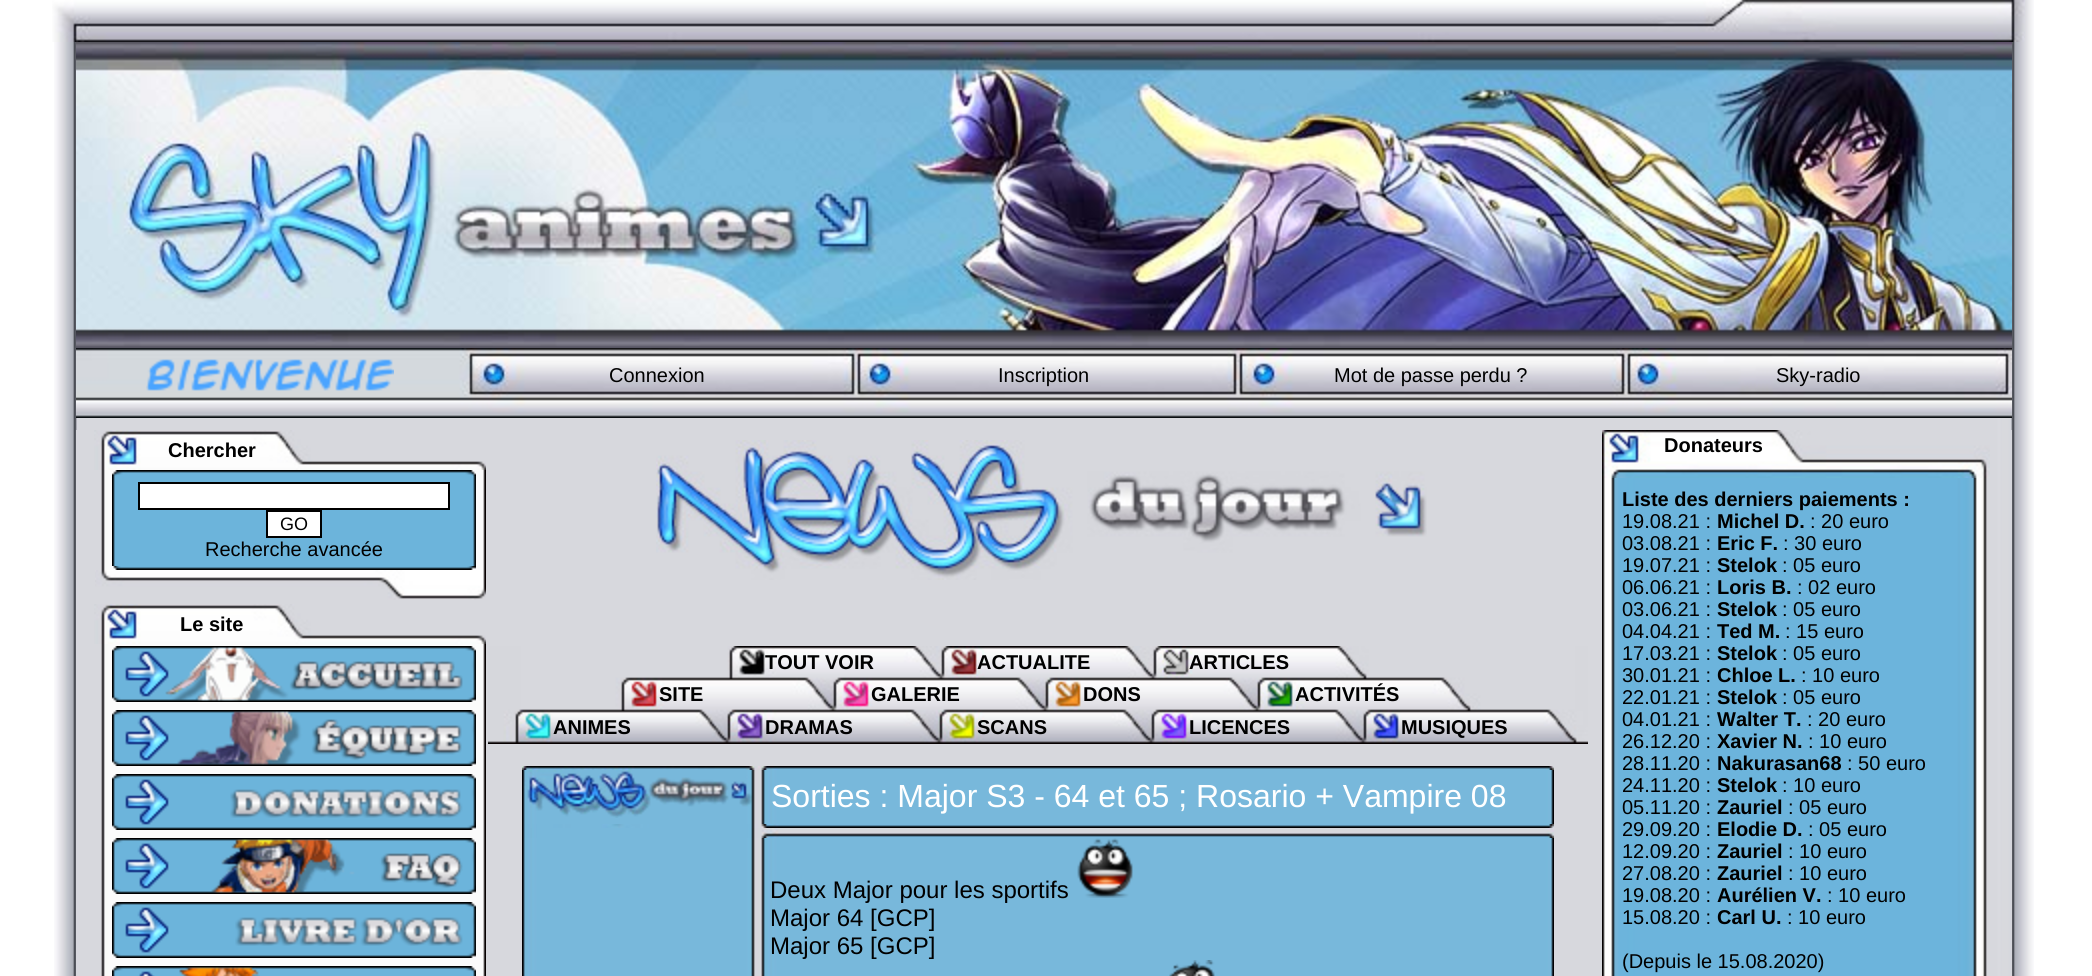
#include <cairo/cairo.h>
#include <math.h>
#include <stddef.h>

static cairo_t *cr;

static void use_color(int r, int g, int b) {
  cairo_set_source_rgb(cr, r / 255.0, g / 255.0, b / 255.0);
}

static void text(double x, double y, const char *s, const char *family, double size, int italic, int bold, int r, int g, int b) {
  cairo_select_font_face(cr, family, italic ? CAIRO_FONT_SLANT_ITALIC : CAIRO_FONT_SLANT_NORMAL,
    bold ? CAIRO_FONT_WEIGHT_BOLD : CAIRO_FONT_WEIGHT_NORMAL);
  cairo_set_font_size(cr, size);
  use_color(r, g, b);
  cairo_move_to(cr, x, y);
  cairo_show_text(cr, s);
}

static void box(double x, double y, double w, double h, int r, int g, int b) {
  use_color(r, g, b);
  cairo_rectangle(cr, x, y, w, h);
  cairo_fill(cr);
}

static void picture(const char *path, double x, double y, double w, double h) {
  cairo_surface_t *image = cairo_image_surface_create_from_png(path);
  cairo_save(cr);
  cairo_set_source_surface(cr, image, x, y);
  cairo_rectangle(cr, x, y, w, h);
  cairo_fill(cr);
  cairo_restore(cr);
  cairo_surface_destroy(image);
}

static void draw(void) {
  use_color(255, 255, 255);
  cairo_paint(cr);
  picture("img_01.png", 54, 0, 1980, 976);
  picture("img_02.png", 52, 0, 1973, 42);
  picture("img_03.png", 76, 42, 1936, 306);
  picture("img_04.png", 76, 348, 1936, 70);
  picture("img_05.png", 146, 359, 248, 32);
  box(76, 430, 1, 546, 215, 216, 221);
  picture("img_06.png", 94, 430, 392, 40);
  picture("img_07.png", 101, 470, 385, 100);
  picture("img_08.png", 112, 470, 364, 6);
  picture("img_09.png", 112, 476, 364, 90);
  use_color(255, 255, 255);
  cairo_rectangle(cr, 139, 483, 310, 26);
  cairo_fill_preserve(cr);
  use_color(0, 0, 0);
  cairo_stroke(cr);
  use_color(255, 255, 255);
  cairo_rectangle(cr, 267, 511, 54, 26);
  cairo_fill_preserve(cr);
  use_color(0, 0, 0);
  cairo_stroke(cr);
  picture("img_10.png", 113, 566, 363, 4);
  picture("img_11.png", 95, 570, 391, 30);
  picture("img_06.png", 94, 604, 392, 40);
  picture("img_12.png", 101, 644, 385, 332);
  picture("img_13.png", 112, 646, 364, 56);
  picture("img_14.png", 165, 647, 298, 54);
  picture("img_15.png", 290, 661, 173, 29);
  picture("img_13.png", 112, 710, 364, 56);
  picture("img_16.png", 177, 711, 285, 54);
  picture("img_17.png", 312, 719, 150, 41);
  picture("img_13.png", 112, 774, 364, 56);
  picture("img_18.png", 230, 789, 233, 29);
  picture("img_13.png", 112, 838, 364, 56);
  picture("img_19.png", 211, 839, 252, 54);
  picture("img_20.png", 381, 853, 82, 35);
  picture("img_13.png", 112, 902, 364, 56);
  picture("img_21.png", 235, 917, 228, 29);
  picture("img_22.png", 112, 966, 364, 10);
  picture("img_23.png", 179, 967, 81, 9);
  box(2011, 430, 1, 546, 214, 215, 220);
  picture("img_24.png", 1602, 430, 388, 48);
  picture("img_25.png", 1602, 478, 385, 498);
  picture("img_26.png", 656, 440, 771, 140);
  picture("img_27.png", 488, 646, 1100, 98);
  picture("img_28.png", 522, 766, 1032, 4);
  picture("img_29.png", 522, 770, 1032, 54);
  picture("img_30.png", 524, 770, 228, 48);
  picture("img_31.png", 522, 824, 1032, 4);
  picture("img_32.png", 522, 828, 1032, 10);
  picture("img_33.png", 522, 838, 1032, 138);
  picture("img_34.png", 1077, 838, 56, 60);
  picture("img_35.png", 1169, 960, 46, 16);
  text(609, 382, "Connexion", "Liberation Sans", 20, 0, 0, 0, 0, 0);
  text(998, 382, "Inscription", "Liberation Sans", 20, 0, 0, 0, 0, 0);
  text(1334, 382, "Mot de passe perdu ?", "Liberation Sans", 20, 0, 0, 0, 0, 0);
  text(1776, 382, "Sky-radio", "Liberation Sans", 20, 0, 0, 0, 0, 0);
  text(168, 457, "Chercher", "Liberation Sans", 20, 0, 1, 0, 0, 0);
  text(280, 530, "GO", "Liberation Sans", 18, 0, 0, 0, 0, 0);
  text(205, 556, "Recherche avancée", "Liberation Sans", 20, 0, 0, 0, 0, 0);
  text(180, 631, "Le site", "Liberation Sans", 20, 0, 1, 0, 0, 0);
  text(1664, 452, "Donateurs", "Liberation Sans", 20, 0, 1, 0, 0, 0);
  text(1622, 506, "Liste des derniers paiements :", "Liberation Sans", 20, 0, 1, 0, 0, 0);
  text(1622, 528, "19.08.21 :", "Liberation Sans", 20, 0, 0, 0, 0, 0);
  text(1717, 528, "Michel D.", "Liberation Sans", 20, 0, 1, 0, 0, 0);
  text(1810, 528, ": 20 euro", "Liberation Sans", 20, 0, 0, 0, 0, 0);
  text(1622, 550, "03.08.21 :", "Liberation Sans", 20, 0, 0, 0, 0, 0);
  text(1717, 550, "Eric F.", "Liberation Sans", 20, 0, 1, 0, 0, 0);
  text(1783, 550, ": 30 euro", "Liberation Sans", 20, 0, 0, 0, 0, 0);
  text(1622, 572, "19.07.21 :", "Liberation Sans", 20, 0, 0, 0, 0, 0);
  text(1717, 572, "Stelok", "Liberation Sans", 20, 0, 1, 0, 0, 0);
  text(1782, 572, ": 05 euro", "Liberation Sans", 20, 0, 0, 0, 0, 0);
  text(1622, 594, "06.06.21 :", "Liberation Sans", 20, 0, 0, 0, 0, 0);
  text(1717, 594, "Loris B.", "Liberation Sans", 20, 0, 1, 0, 0, 0);
  text(1797, 594, ": 02 euro", "Liberation Sans", 20, 0, 0, 0, 0, 0);
  text(1622, 616, "03.06.21 :", "Liberation Sans", 20, 0, 0, 0, 0, 0);
  text(1717, 616, "Stelok", "Liberation Sans", 20, 0, 1, 0, 0, 0);
  text(1782, 616, ": 05 euro", "Liberation Sans", 20, 0, 0, 0, 0, 0);
  text(1622, 638, "04.04.21 :", "Liberation Sans", 20, 0, 0, 0, 0, 0);
  text(1717, 638, "Ted M.", "Liberation Sans", 20, 0, 1, 0, 0, 0);
  text(1785, 638, ": 15 euro", "Liberation Sans", 20, 0, 0, 0, 0, 0);
  text(1622, 660, "17.03.21 :", "Liberation Sans", 20, 0, 0, 0, 0, 0);
  text(1717, 660, "Stelok", "Liberation Sans", 20, 0, 1, 0, 0, 0);
  text(1782, 660, ": 05 euro", "Liberation Sans", 20, 0, 0, 0, 0, 0);
  text(1622, 682, "30.01.21 :", "Liberation Sans", 20, 0, 0, 0, 0, 0);
  text(1717, 682, "Chloe L.", "Liberation Sans", 20, 0, 1, 0, 0, 0);
  text(1801, 682, ": 10 euro", "Liberation Sans", 20, 0, 0, 0, 0, 0);
  text(1622, 704, "22.01.21 :", "Liberation Sans", 20, 0, 0, 0, 0, 0);
  text(1717, 704, "Stelok", "Liberation Sans", 20, 0, 1, 0, 0, 0);
  text(1782, 704, ": 05 euro", "Liberation Sans", 20, 0, 0, 0, 0, 0);
  text(1622, 726, "04.01.21 :", "Liberation Sans", 20, 0, 0, 0, 0, 0);
  text(1717, 726, "Walter T.", "Liberation Sans", 20, 0, 1, 0, 0, 0);
  text(1807, 726, ": 20 euro", "Liberation Sans", 20, 0, 0, 0, 0, 0);
  text(1622, 748, "26.12.20 :", "Liberation Sans", 20, 0, 0, 0, 0, 0);
  text(1717, 748, "Xavier N.", "Liberation Sans", 20, 0, 1, 0, 0, 0);
  text(1808, 748, ": 10 euro", "Liberation Sans", 20, 0, 0, 0, 0, 0);
  text(1622, 770, "28.11.20 :", "Liberation Sans", 20, 0, 0, 0, 0, 0);
  text(1717, 770, "Nakurasan68", "Liberation Sans", 20, 0, 1, 0, 0, 0);
  text(1847, 770, ": 50 euro", "Liberation Sans", 20, 0, 0, 0, 0, 0);
  text(1622, 792, "24.11.20 :", "Liberation Sans", 20, 0, 0, 0, 0, 0);
  text(1717, 792, "Stelok", "Liberation Sans", 20, 0, 1, 0, 0, 0);
  text(1782, 792, ": 10 euro", "Liberation Sans", 20, 0, 0, 0, 0, 0);
  text(1622, 814, "05.11.20 :", "Liberation Sans", 20, 0, 0, 0, 0, 0);
  text(1717, 814, "Zauriel", "Liberation Sans", 20, 0, 1, 0, 0, 0);
  text(1788, 814, ": 05 euro", "Liberation Sans", 20, 0, 0, 0, 0, 0);
  text(1622, 836, "29.09.20 :", "Liberation Sans", 20, 0, 0, 0, 0, 0);
  text(1717, 836, "Elodie D.", "Liberation Sans", 20, 0, 1, 0, 0, 0);
  text(1808, 836, ": 05 euro", "Liberation Sans", 20, 0, 0, 0, 0, 0);
  text(1622, 858, "12.09.20 :", "Liberation Sans", 20, 0, 0, 0, 0, 0);
  text(1717, 858, "Zauriel", "Liberation Sans", 20, 0, 1, 0, 0, 0);
  text(1788, 858, ": 10 euro", "Liberation Sans", 20, 0, 0, 0, 0, 0);
  text(1622, 880, "27.08.20 :", "Liberation Sans", 20, 0, 0, 0, 0, 0);
  text(1717, 880, "Zauriel", "Liberation Sans", 20, 0, 1, 0, 0, 0);
  text(1788, 880, ": 10 euro", "Liberation Sans", 20, 0, 0, 0, 0, 0);
  text(1622, 902, "19.08.20 :", "Liberation Sans", 20, 0, 0, 0, 0, 0);
  text(1717, 902, "Aurélien V.", "Liberation Sans", 20, 0, 1, 0, 0, 0);
  text(1827, 902, ": 10 euro", "Liberation Sans", 20, 0, 0, 0, 0, 0);
  text(1622, 924, "15.08.20 :", "Liberation Sans", 20, 0, 0, 0, 0, 0);
  text(1717, 924, "Carl U.", "Liberation Sans", 20, 0, 1, 0, 0, 0);
  text(1787, 924, ": 10 euro", "Liberation Sans", 20, 0, 0, 0, 0, 0);
  text(1622, 968, "(Depuis le 15.08.2020)", "Liberation Sans", 20, 0, 0, 0, 0, 0);
  text(765, 669, "TOUT VOIR", "Liberation Sans", 20, 0, 1, 0, 0, 0);
  text(977, 669, "ACTUALITE", "Liberation Sans", 20, 0, 1, 0, 0, 0);
  text(1189, 669, "ARTICLES", "Liberation Sans", 20, 0, 1, 0, 0, 0);
  text(659, 701, "SITE", "Liberation Sans", 20, 0, 1, 0, 0, 0);
  text(871, 701, "GALERIE", "Liberation Sans", 20, 0, 1, 0, 0, 0);
  text(1083, 701, "DONS", "Liberation Sans", 20, 0, 1, 0, 0, 0);
  text(1295, 701, "ACTIVITÉS", "Liberation Sans", 20, 0, 1, 0, 0, 0);
  text(553, 734, "ANIMES", "Liberation Sans", 20, 0, 1, 0, 0, 0);
  text(765, 734, "DRAMAS", "Liberation Sans", 20, 0, 1, 0, 0, 0);
  text(977, 734, "SCANS", "Liberation Sans", 20, 0, 1, 0, 0, 0);
  text(1189, 734, "LICENCES", "Liberation Sans", 20, 0, 1, 0, 0, 0);
  text(1401, 734, "MUSIQUES", "Liberation Sans", 20, 0, 1, 0, 0, 0);
  text(771, 807, "Sorties : Major S3 - 64 et 65 ; Rosario + Vampire 08", "Liberation Sans", 32, 0, 0, 255, 255, 255);
  text(770, 898, "Deux Major pour les sportifs", "Liberation Sans", 24, 0, 0, 0, 0, 0);
  text(770, 926, "Major 64 [GCP]", "Liberation Sans", 24, 0, 0, 0, 0, 0);
  text(770, 954, "Major 65 [GCP]", "Liberation Sans", 24, 0, 0, 0, 0, 0);
}

int main(void) {
  cairo_surface_t *surface = cairo_image_surface_create(CAIRO_FORMAT_RGB24, 2092, 976);
  cr = cairo_create(surface);
  cairo_font_options_t *options = cairo_font_options_create();
  cairo_font_options_set_hint_metrics(options, CAIRO_HINT_METRICS_OFF);
  cairo_font_options_set_hint_style(options, CAIRO_HINT_STYLE_NONE);
  cairo_set_font_options(cr, options);
  cairo_set_miter_limit(cr, 4);
  draw();
  cairo_surface_write_to_png(surface, "out.png");
  cairo_font_options_destroy(options);
  cairo_destroy(cr);
  cairo_surface_destroy(surface);
  return 0;
}
